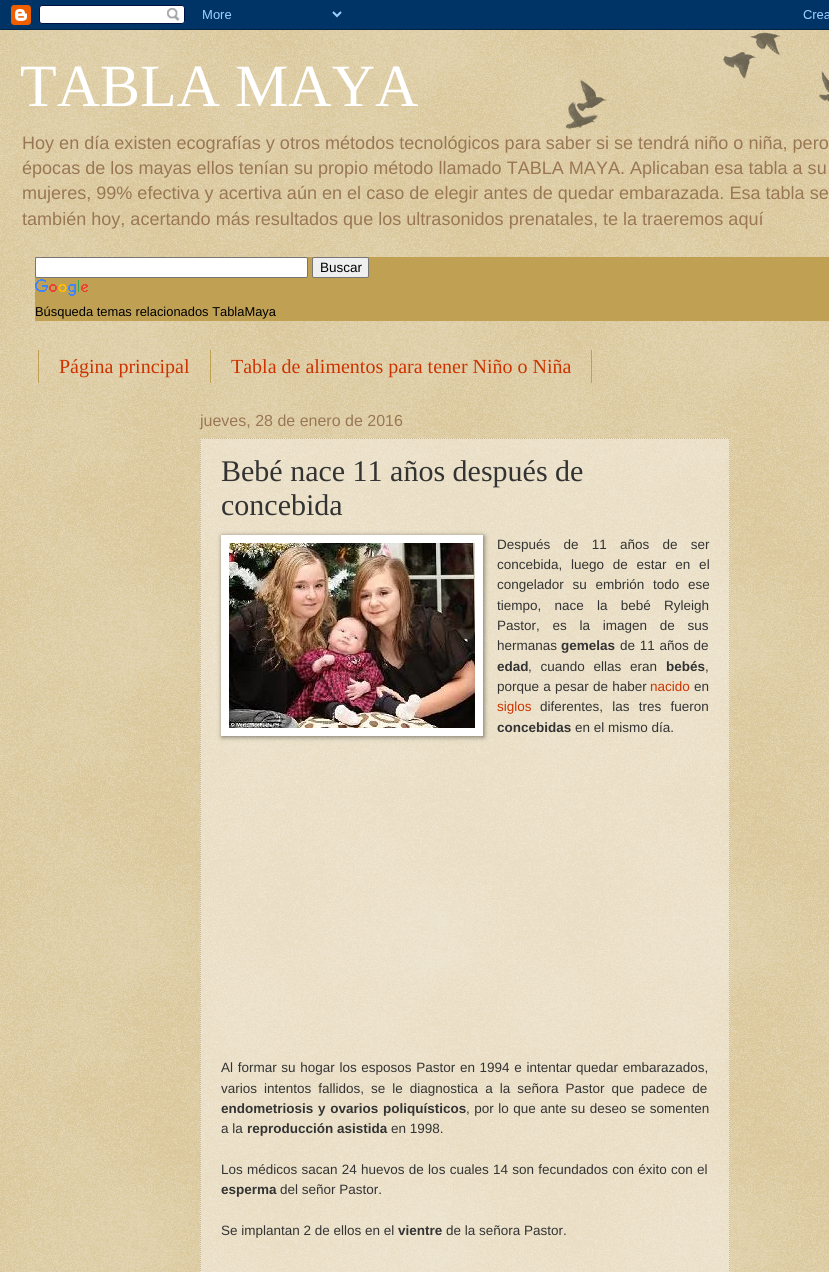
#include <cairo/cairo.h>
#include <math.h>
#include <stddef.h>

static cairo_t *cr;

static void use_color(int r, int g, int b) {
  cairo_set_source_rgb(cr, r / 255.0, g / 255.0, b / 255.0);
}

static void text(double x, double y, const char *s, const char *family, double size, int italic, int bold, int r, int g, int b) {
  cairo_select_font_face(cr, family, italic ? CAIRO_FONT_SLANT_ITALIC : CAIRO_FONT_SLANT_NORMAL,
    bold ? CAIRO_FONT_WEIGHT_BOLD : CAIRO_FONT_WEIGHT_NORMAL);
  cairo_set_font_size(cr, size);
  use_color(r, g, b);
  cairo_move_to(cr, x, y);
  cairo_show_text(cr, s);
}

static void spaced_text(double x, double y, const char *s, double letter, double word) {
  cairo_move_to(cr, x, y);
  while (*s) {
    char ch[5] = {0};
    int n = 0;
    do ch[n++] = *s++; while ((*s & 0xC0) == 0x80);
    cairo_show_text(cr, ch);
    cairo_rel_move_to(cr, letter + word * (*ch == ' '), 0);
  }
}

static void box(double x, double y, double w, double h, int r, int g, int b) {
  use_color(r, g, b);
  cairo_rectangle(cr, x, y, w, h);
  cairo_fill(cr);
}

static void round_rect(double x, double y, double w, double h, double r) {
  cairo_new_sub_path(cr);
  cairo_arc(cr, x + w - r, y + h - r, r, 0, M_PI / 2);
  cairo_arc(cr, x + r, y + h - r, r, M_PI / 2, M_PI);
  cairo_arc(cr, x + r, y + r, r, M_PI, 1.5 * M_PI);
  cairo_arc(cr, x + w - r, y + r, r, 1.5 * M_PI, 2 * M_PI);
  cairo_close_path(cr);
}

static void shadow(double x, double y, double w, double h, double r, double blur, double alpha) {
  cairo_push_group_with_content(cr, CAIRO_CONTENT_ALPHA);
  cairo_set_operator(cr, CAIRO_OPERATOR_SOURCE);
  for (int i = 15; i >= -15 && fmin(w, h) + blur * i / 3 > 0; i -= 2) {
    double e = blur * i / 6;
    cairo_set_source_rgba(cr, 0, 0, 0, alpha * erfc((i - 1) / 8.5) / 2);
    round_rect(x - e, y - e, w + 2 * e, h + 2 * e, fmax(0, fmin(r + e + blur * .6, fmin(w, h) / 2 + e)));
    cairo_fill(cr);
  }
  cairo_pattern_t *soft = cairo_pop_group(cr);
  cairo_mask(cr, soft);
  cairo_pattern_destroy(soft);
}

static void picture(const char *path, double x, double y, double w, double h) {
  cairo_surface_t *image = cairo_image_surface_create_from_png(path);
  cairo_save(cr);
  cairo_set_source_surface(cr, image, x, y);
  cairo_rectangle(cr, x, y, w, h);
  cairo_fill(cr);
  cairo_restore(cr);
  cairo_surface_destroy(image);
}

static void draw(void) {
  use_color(192, 161, 84);
  cairo_paint(cr);
  picture("img_01.png", 0, 30, 829, 1242);
  picture("img_02.png", 0, 0, 829, 30);
  picture("img_03.png", 565, 32, 264, 97);
  box(35, 257, 794, 64, 192, 161, 84);
  use_color(255, 255, 255);
  round_rect(35.5, 257.5, 272, 20, 1.5);
  cairo_fill_preserve(cr);
  use_color(118, 118, 118);
  cairo_set_line_width(cr, 1);
  cairo_stroke(cr);
  use_color(239, 239, 239);
  round_rect(312.5, 257.5, 56, 20, 1.5);
  cairo_fill_preserve(cr);
  use_color(118, 118, 118);
  cairo_stroke(cr);
  picture("img_04.png", 35, 279, 53, 17);
  box(210, 350, 1, 33, 192, 161, 84);
  box(38, 350, 1, 33, 192, 161, 84);
  box(591, 350, 1, 33, 192, 161, 84);
  cairo_set_source_rgba(cr, 1, 1, 1, 0.4);
  cairo_rectangle(cr, 200, 438, 530, 834);
  cairo_fill(cr);
  cairo_new_path(cr);
  cairo_move_to(cr, 200, 438.5);
  cairo_line_to(cr, 730, 438.5);
  use_color(204, 187, 153);
  cairo_set_dash(cr, (double[]){1, 1}, 2, 0);
  cairo_stroke(cr);
  cairo_new_path(cr);
  cairo_move_to(cr, 729.5, 438);
  cairo_line_to(cr, 729.5, 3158);
  cairo_stroke(cr);
  cairo_new_path(cr);
  cairo_move_to(cr, 200.5, 438);
  cairo_line_to(cr, 200.5, 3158);
  cairo_stroke(cr);
  use_color(0, 0, 0);
  shadow(222, 536, 262, 201, 0, 2.5, 0.5);
  box(221, 535, 262, 201, 255, 255, 255);
  picture("img_05.png", 229, 543, 246, 185);
  text(20, 106, "TABLA MAYA", "Liberation Serif", 60, 0, 0, 255, 255, 255);
  text(22, 149, "Hoy en día existen ecografías y otros métodos tecnológicos para saber si se tendrá niño o niña, pero", "Liberation Sans", 18.05, 0, 0, 153, 119, 85);
  text(22, 174, "épocas de los mayas ellos tenían su propio método llamado TABLA MAYA. Aplicaban esa tabla a su", "Liberation Sans", 18.05, 0, 0, 153, 119, 85);
  text(22, 199, "mujeres, 99% efectiva y acertiva aún en el caso de elegir antes de quedar embarazada. Esa tabla se", "Liberation Sans", 18.05, 0, 0, 153, 119, 85);
  text(22, 225, "también hoy, acertando más resultados que los ultrasonidos prenatales, te la traeremos aquí", "Liberation Sans", 18.05, 0, 0, 153, 119, 85);
  text(320, 272, "Buscar", "Liberation Sans", 13.5, 0, 0, 0, 0, 0);
  text(35, 316, "Búsqueda temas relacionados TablaMaya", "Liberation Sans", 12.9, 0, 0, 0, 0, 0);
  text(59, 373, "Página principal", "Liberation Serif", 20, 0, 0, 204, 51, 0);
  text(231, 373, "Tabla de alimentos para tener Niño o Niña", "Liberation Serif", 20, 0, 0, 204, 51, 0);
  text(200, 426, "jueves, 28 de enero de 2016", "Liberation Sans", 16, 0, 0, 153, 119, 85);
  text(221, 481, "Bebé nace 11 años después de", "Liberation Serif", 30, 0, 0, 51, 51, 51);
  text(221, 515, "concebida", "Liberation Serif", 30, 0, 0, 51, 51, 51);
  cairo_select_font_face(cr, "Liberation Sans", CAIRO_FONT_SLANT_NORMAL, CAIRO_FONT_WEIGHT_NORMAL);
  cairo_set_font_size(cr, 13.5);
  spaced_text(497, 549, "Después de 11 años de ser", 0, 9.5);
  spaced_text(497, 569, "concebida, luego de estar en el", 0, 5);
  spaced_text(497, 589, "congelador su embrión todo ese", 0, 5);
  spaced_text(497, 610, "tiempo, nace la bebé", 0, 9.5);
  text(664, 610, "Ryleigh", "Liberation Sans", 13.5, 0, 0, 51, 51, 51);
  spaced_text(497, 630, "Pastor, es la imagen de sus", 0, 9);
  text(497, 650, "hermanas", "Liberation Sans", 13.5, 0, 0, 51, 51, 51);
  text(561, 650, "gemelas", "Liberation Sans", 13.5, 0, 1, 51, 51, 51);
  cairo_select_font_face(cr, "Liberation Sans", CAIRO_FONT_SLANT_NORMAL, CAIRO_FONT_WEIGHT_NORMAL);
  spaced_text(620, 650, "de 11 años de", 0, 1);
  text(497, 671, "edad", "Liberation Sans", 13.5, 0, 1, 51, 51, 51);
  cairo_select_font_face(cr, "Liberation Sans", CAIRO_FONT_SLANT_NORMAL, CAIRO_FONT_WEIGHT_NORMAL);
  spaced_text(528, 671, ", cuando ellas eran", 0, 5);
  text(666, 671, "bebés", "Liberation Sans", 13.5, 0, 1, 51, 51, 51);
  text(705, 671, ",", "Liberation Sans", 13.5, 0, 0, 51, 51, 51);
  spaced_text(497, 691, "porque a pesar de haber", 0, 0.5);
  text(650, 691, "nacido", "Liberation Sans", 13.5, 0, 0, 204, 51, 0);
  text(694, 691, "en", "Liberation Sans", 13.5, 0, 0, 51, 51, 51);
  text(497, 711, "siglos", "Liberation Sans", 13.5, 0, 0, 204, 51, 0);
  use_color(51, 51, 51);
  spaced_text(540, 711, "diferentes, las tres fueron", 0, 5.5);
  text(497, 732, "concebidas", "Liberation Sans", 13.5, 0, 1, 51, 51, 51);
  text(575, 732, "en el mismo día.", "Liberation Sans", 13.5, 0, 0, 51, 51, 51);
  spaced_text(221, 1072, "Al formar su hogar los esposos Pastor en 1994 e intentar quedar embarazados,", 0, 0.9);
  spaced_text(221, 1093, "varios intentos fallidos, se le diagnostica a la señora Pastor que padece de", 0, 3.25);
  cairo_select_font_face(cr, "Liberation Sans", CAIRO_FONT_SLANT_NORMAL, CAIRO_FONT_WEIGHT_BOLD);
  spaced_text(221, 1113, "endometriosis y ovarios poliquísticos", 0, 1);
  cairo_select_font_face(cr, "Liberation Sans", CAIRO_FONT_SLANT_NORMAL, CAIRO_FONT_WEIGHT_NORMAL);
  spaced_text(466, 1113, ", por lo que ante su deseo se somenten", 0, 0.75);
  text(221, 1133, "a la", "Liberation Sans", 13.5, 0, 0, 51, 51, 51);
  text(247, 1133, "reproducción asistida", "Liberation Sans", 13.5, 0, 1, 51, 51, 51);
  text(391, 1133, "en 1998.", "Liberation Sans", 13.5, 0, 0, 51, 51, 51);
  spaced_text(221, 1174, "Los médicos sacan 24 huevos de los cuales 14 son fecundados con éxito con el", 0, 0.5);
  text(221, 1194, "esperma", "Liberation Sans", 13.5, 0, 1, 51, 51, 51);
  text(280, 1194, "del señor Pastor.", "Liberation Sans", 13.5, 0, 0, 51, 51, 51);
  text(221, 1235, "Se implantan 2 de ellos en el", "Liberation Sans", 13.5, 0, 0, 51, 51, 51);
  text(398, 1235, "vientre", "Liberation Sans", 13.5, 0, 1, 51, 51, 51);
  text(446, 1235, "de la señora Pastor.", "Liberation Sans", 13.5, 0, 0, 51, 51, 51);
}

int main(void) {
  cairo_surface_t *surface = cairo_image_surface_create(CAIRO_FORMAT_RGB24, 829, 1272);
  cr = cairo_create(surface);
  cairo_font_options_t *options = cairo_font_options_create();
  cairo_font_options_set_hint_metrics(options, CAIRO_HINT_METRICS_OFF);
  cairo_font_options_set_hint_style(options, CAIRO_HINT_STYLE_NONE);
  cairo_set_font_options(cr, options);
  cairo_set_miter_limit(cr, 4);
  draw();
  cairo_surface_write_to_png(surface, "out.png");
  cairo_font_options_destroy(options);
  cairo_destroy(cr);
  cairo_surface_destroy(surface);
  return 0;
}
